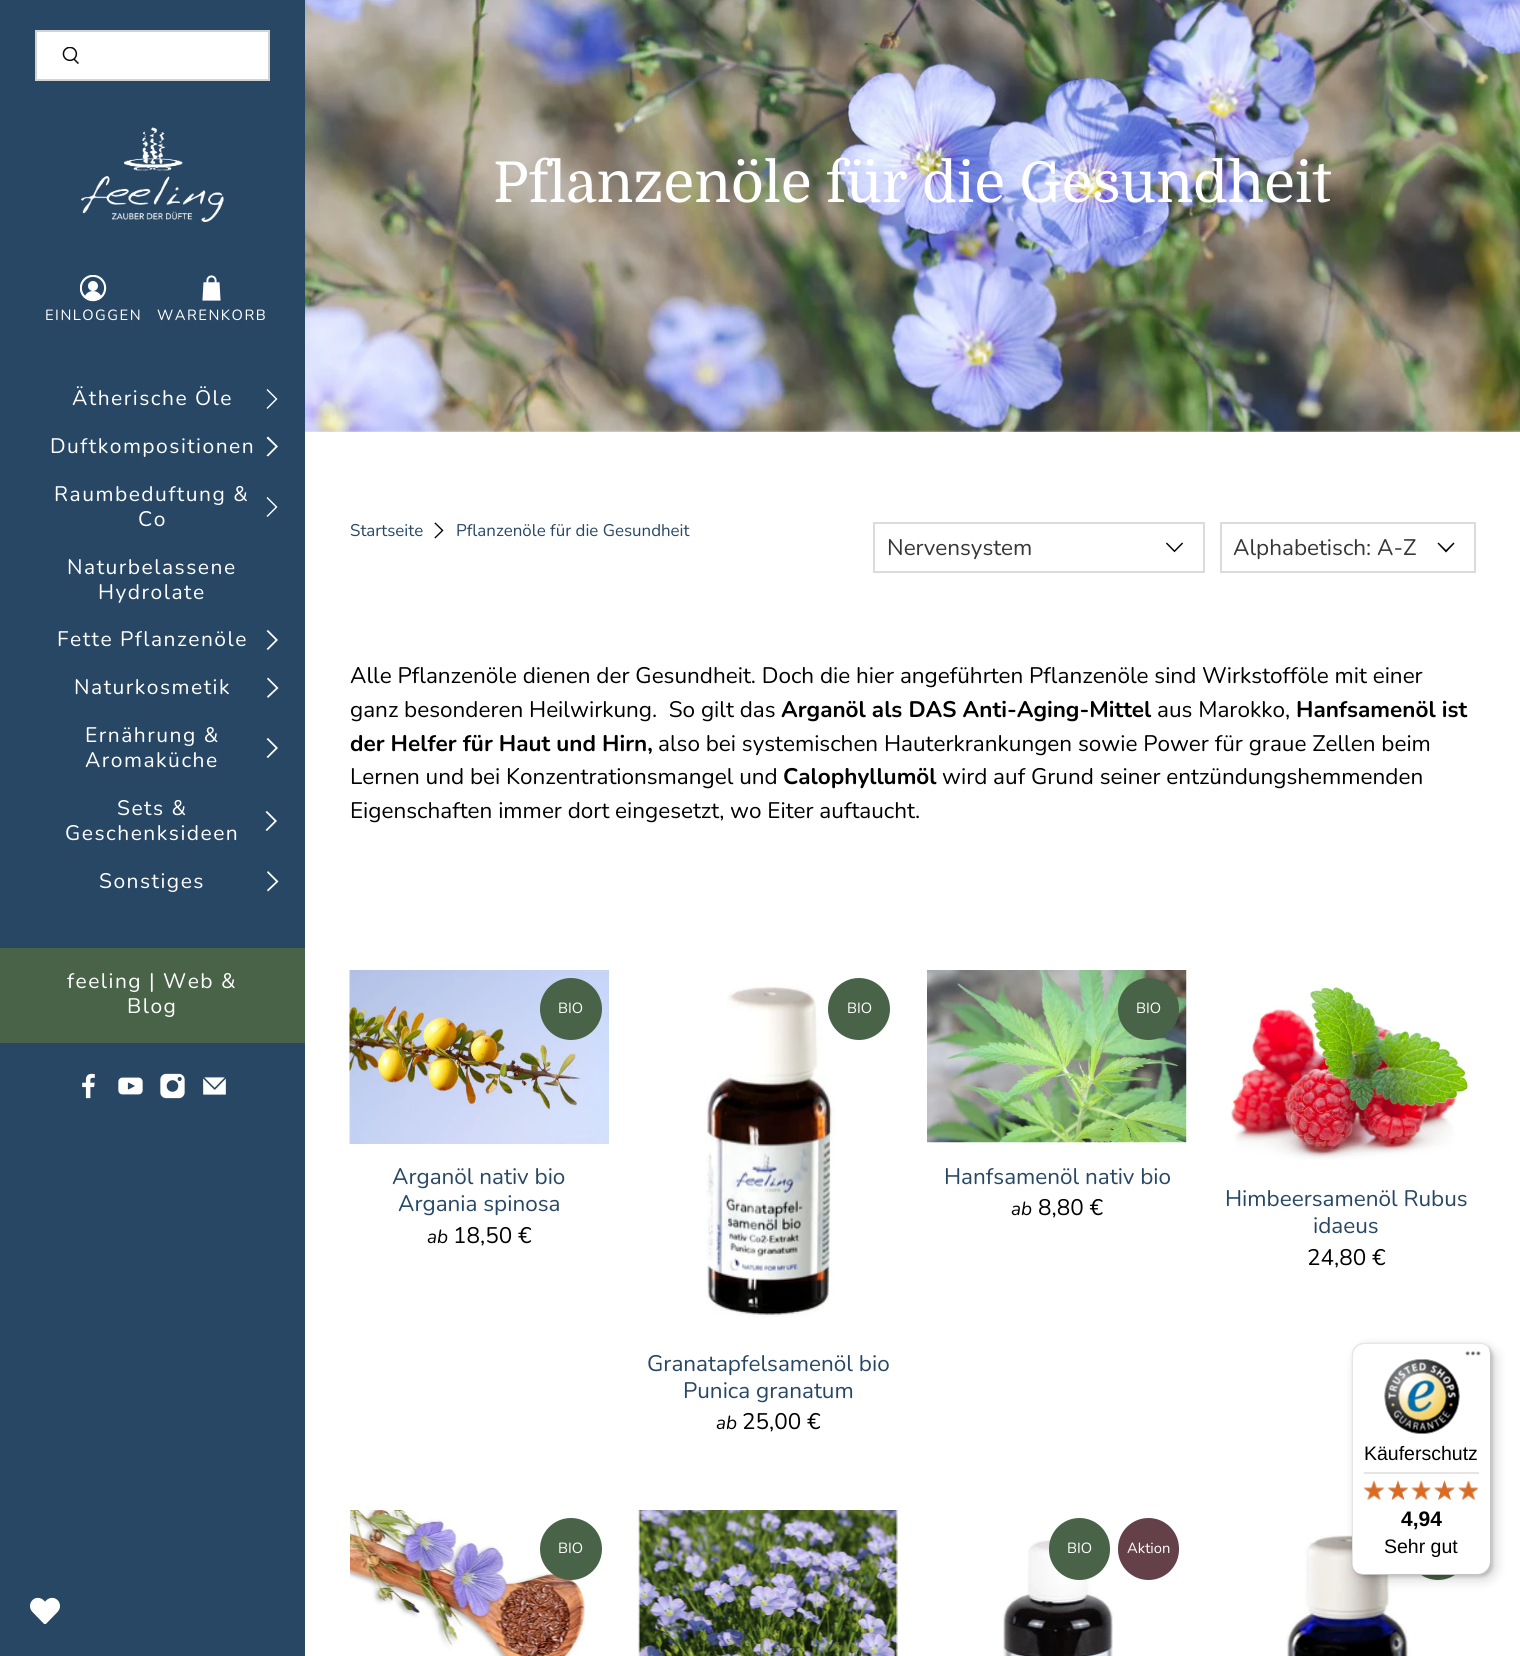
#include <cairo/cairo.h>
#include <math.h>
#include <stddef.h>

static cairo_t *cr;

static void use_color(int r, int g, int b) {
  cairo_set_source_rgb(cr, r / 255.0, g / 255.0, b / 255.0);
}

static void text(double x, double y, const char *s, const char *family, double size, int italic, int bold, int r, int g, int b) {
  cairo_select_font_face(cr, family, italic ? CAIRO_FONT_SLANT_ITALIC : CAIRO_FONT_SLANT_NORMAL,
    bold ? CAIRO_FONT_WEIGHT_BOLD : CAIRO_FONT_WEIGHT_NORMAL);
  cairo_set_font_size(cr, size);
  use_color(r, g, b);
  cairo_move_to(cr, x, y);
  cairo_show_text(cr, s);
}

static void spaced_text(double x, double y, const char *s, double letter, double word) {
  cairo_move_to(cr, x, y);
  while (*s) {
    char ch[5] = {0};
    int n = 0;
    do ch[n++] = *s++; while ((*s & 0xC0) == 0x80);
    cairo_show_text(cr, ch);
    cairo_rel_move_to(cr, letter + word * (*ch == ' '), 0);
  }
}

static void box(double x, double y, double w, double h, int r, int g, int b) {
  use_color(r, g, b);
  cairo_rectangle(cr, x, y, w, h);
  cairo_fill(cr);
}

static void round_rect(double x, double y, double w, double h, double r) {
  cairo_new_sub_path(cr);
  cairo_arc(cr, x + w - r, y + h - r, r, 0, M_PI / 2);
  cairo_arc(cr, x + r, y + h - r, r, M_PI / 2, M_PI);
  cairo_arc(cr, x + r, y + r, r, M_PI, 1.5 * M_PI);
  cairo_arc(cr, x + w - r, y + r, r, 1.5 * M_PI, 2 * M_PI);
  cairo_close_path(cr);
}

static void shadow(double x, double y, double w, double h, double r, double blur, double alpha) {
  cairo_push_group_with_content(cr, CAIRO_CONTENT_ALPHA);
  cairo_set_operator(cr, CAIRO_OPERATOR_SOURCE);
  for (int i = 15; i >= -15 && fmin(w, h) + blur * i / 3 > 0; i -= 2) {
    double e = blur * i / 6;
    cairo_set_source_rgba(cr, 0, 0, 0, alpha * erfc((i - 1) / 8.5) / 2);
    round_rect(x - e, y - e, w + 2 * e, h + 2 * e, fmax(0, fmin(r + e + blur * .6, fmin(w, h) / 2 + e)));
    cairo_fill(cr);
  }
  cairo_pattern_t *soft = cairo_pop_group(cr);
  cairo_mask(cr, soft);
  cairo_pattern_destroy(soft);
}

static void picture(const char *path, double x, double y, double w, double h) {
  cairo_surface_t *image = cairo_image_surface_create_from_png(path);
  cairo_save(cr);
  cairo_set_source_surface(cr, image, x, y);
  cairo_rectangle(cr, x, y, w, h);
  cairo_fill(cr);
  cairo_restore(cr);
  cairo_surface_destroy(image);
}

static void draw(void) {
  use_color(255, 255, 255);
  cairo_paint(cr);
  box(0, 0, 305, 1656, 39, 71, 100);
  use_color(255, 255, 255);
  cairo_rectangle(cr, 36, 31, 233, 49);
  cairo_fill_preserve(cr);
  use_color(211, 211, 211);
  cairo_stroke(cr);
  picture("img_01.png", 62, 47, 17, 17);
  picture("img_02.png", 81, 127, 143, 95);
  picture("img_03.png", 80, 275, 27, 27);
  picture("img_04.png", 202, 275, 19, 26);
  use_color(255, 255, 255);
  cairo_new_path(cr);
  cairo_move_to(cr, 277.5, 399);
  cairo_line_to(cr, 267.5, 409);
  cairo_line_to(cr, 266.5, 408);
  cairo_line_to(cr, 275.5, 399);
  cairo_line_to(cr, 266.5, 390);
  cairo_line_to(cr, 267.5, 389);
  cairo_close_path(cr);
  cairo_fill(cr);
  cairo_new_path(cr);
  cairo_move_to(cr, 278, 446.5);
  cairo_line_to(cr, 268, 456.5);
  cairo_line_to(cr, 266.5, 455.5);
  cairo_line_to(cr, 275.5, 446.5);
  cairo_line_to(cr, 266.5, 438);
  cairo_line_to(cr, 268, 436.5);
  cairo_close_path(cr);
  cairo_fill(cr);
  cairo_new_path(cr);
  cairo_move_to(cr, 277.5, 507);
  cairo_line_to(cr, 267.5, 517);
  cairo_line_to(cr, 266.5, 516);
  cairo_line_to(cr, 275.5, 507);
  cairo_line_to(cr, 266.5, 498);
  cairo_line_to(cr, 267.5, 497);
  cairo_close_path(cr);
  cairo_fill(cr);
  cairo_new_path(cr);
  cairo_move_to(cr, 278, 640);
  cairo_line_to(cr, 268, 650);
  cairo_line_to(cr, 266.5, 649);
  cairo_line_to(cr, 275.5, 640);
  cairo_line_to(cr, 266.5, 631);
  cairo_line_to(cr, 268, 630);
  cairo_close_path(cr);
  cairo_fill(cr);
  cairo_new_path(cr);
  cairo_move_to(cr, 278.5, 688);
  cairo_line_to(cr, 268, 698);
  cairo_line_to(cr, 267, 696.5);
  cairo_line_to(cr, 276, 688);
  cairo_line_to(cr, 267, 679);
  cairo_line_to(cr, 268, 677.5);
  cairo_close_path(cr);
  cairo_fill(cr);
  cairo_new_path(cr);
  cairo_move_to(cr, 278, 748);
  cairo_line_to(cr, 268, 758);
  cairo_line_to(cr, 266.5, 757);
  cairo_line_to(cr, 275.5, 748);
  cairo_line_to(cr, 266.5, 739);
  cairo_line_to(cr, 268, 738);
  cairo_close_path(cr);
  cairo_fill(cr);
  cairo_new_path(cr);
  cairo_move_to(cr, 277, 821);
  cairo_line_to(cr, 267, 831);
  cairo_line_to(cr, 265.5, 830);
  cairo_line_to(cr, 274.5, 821);
  cairo_line_to(cr, 265.5, 812);
  cairo_line_to(cr, 267, 811);
  cairo_close_path(cr);
  cairo_fill(cr);
  cairo_new_path(cr);
  cairo_move_to(cr, 278.5, 881.5);
  cairo_line_to(cr, 268, 891.5);
  cairo_line_to(cr, 267, 890);
  cairo_line_to(cr, 276, 881.5);
  cairo_line_to(cr, 267, 872.5);
  cairo_line_to(cr, 268, 871);
  cairo_close_path(cr);
  cairo_fill(cr);
  box(0, 948, 305, 95, 72, 99, 71);
  picture("img_05.png", 82, 1073, 13, 26);
  picture("img_06.png", 118, 1077, 25, 18);
  picture("img_07.png", 160, 1073, 25, 26);
  picture("img_08.png", 203, 1077, 23, 18);
  picture("img_09.png", 305, 0, 1215, 432);
  picture("img_10.png", 434, 522, 10, 17);
  cairo_rectangle(cr, 874, 523, 330, 49);
  use_color(219, 219, 219);
  cairo_stroke(cr);
  picture("img_11.png", 1166, 542, 17, 11);
  cairo_rectangle(cr, 1221, 523, 254, 49);
  cairo_stroke(cr);
  use_color(0, 0, 0);
  cairo_new_path(cr);
  cairo_move_to(cr, 1446, 552.5);
  cairo_line_to(cr, 1437.5, 543.5);
  cairo_line_to(cr, 1438.5, 542.5);
  cairo_line_to(cr, 1446, 550);
  cairo_line_to(cr, 1453.5, 542.5);
  cairo_line_to(cr, 1454.5, 543.5);
  cairo_close_path(cr);
  cairo_fill(cr);
  picture("img_12.png", 349, 970, 260, 174);
  use_color(72, 99, 71);
  cairo_arc(cr, 571, 1009, 31, 0, 2 * M_PI);
  cairo_fill(cr);
  picture("img_13.png", 706, 986, 129, 332);
  cairo_arc(cr, 859, 1009, 31, 0, 2 * M_PI);
  cairo_fill(cr);
  picture("img_14.png", 927, 970, 260, 173);
  round_rect(1118, 978, 61, 62, 30.5);
  cairo_fill(cr);
  picture("img_15.png", 1230, 985, 240, 175);
  picture("img_16.png", 350, 1510, 235, 146);
  cairo_arc(cr, 571, 1549, 31, 0, 2 * M_PI);
  cairo_fill(cr);
  picture("img_17.png", 638, 1510, 260, 146);
  picture("img_18.png", 1003, 1540, 110, 116);
  round_rect(1049, 1518, 61, 62, 30.5);
  cairo_fill(cr);
  use_color(100, 65, 72);
  round_rect(1118, 1518, 61, 62, 30.5);
  cairo_fill(cr);
  picture("img_19.png", 1286, 1535, 125, 121);
  use_color(72, 99, 71);
  cairo_arc(cr, 1438, 1549, 31, 0, 2 * M_PI);
  cairo_fill(cr);
  use_color(0, 0, 0);
  shadow(1356, 1347, 140, 233, 12, 6, 0.15);
  shadow(1353, 1344, 140, 233, 12, 1.5, 0.15);
  use_color(255, 255, 255);
  round_rect(1352, 1343, 139, 232, 12);
  cairo_fill(cr);
  cairo_set_source_rgba(cr, 0, 0, 0, 0.1);
  cairo_new_path(cr);
  cairo_move_to(cr, 1365, 1344);
  cairo_line_to(cr, 1480, 1344);
  cairo_curve_to(cr, 1483, 1344, 1485, 1345, 1487, 1346);
  cairo_curve_to(cr, 1485, 1344, 1482, 1343, 1479, 1343);
  cairo_line_to(cr, 1364, 1343);
  cairo_curve_to(cr, 1357, 1343, 1352, 1348, 1352, 1355);
  cairo_line_to(cr, 1352, 1563);
  cairo_curve_to(cr, 1352, 1566, 1353, 1569, 1355, 1571);
  cairo_curve_to(cr, 1354, 1569, 1353, 1567, 1353, 1564);
  cairo_line_to(cr, 1353, 1356);
  cairo_curve_to(cr, 1353, 1349, 1358, 1344, 1365, 1344);
  cairo_close_path(cr);
  cairo_fill(cr);
  cairo_set_source_rgba(cr, 0, 0, 0, 0.2);
  cairo_new_path(cr);
  cairo_move_to(cr, 1358, 1573);
  cairo_curve_to(cr, 1359, 1574, 1362, 1575, 1364, 1575);
  cairo_line_to(cr, 1479, 1575);
  cairo_curve_to(cr, 1486, 1575, 1491, 1570, 1491, 1563);
  cairo_line_to(cr, 1491, 1355);
  cairo_curve_to(cr, 1491, 1353, 1490, 1350, 1489, 1349);
  cairo_line_to(cr, 1490, 1353);
  cairo_line_to(cr, 1490, 1562);
  cairo_curve_to(cr, 1490, 1568, 1484, 1574, 1478, 1574);
  cairo_line_to(cr, 1362, 1574);
  cairo_close_path(cr);
  cairo_fill(cr);
  cairo_set_source_rgba(cr, 0.196, 0.196, 0.196, 0.2);
  cairo_new_path(cr);
  cairo_move_to(cr, 1356, 1572);
  cairo_curve_to(cr, 1358, 1574, 1361, 1575, 1364, 1575);
  cairo_line_to(cr, 1479, 1575);
  cairo_curve_to(cr, 1486, 1575, 1491, 1570, 1491, 1563);
  cairo_line_to(cr, 1491, 1355);
  cairo_curve_to(cr, 1491, 1352, 1490, 1349, 1488, 1347);
  cairo_curve_to(cr, 1489, 1349, 1490, 1351, 1490, 1354);
  cairo_line_to(cr, 1490, 1562);
  cairo_curve_to(cr, 1490, 1569, 1485, 1574, 1478, 1574);
  cairo_line_to(cr, 1363, 1574);
  cairo_curve_to(cr, 1360, 1574, 1358, 1573, 1356, 1572);
  cairo_close_path(cr);
  cairo_fill(cr);
  cairo_set_source_rgba(cr, 1, 1, 1, 0.3);
  cairo_new_path(cr);
  cairo_move_to(cr, 1356, 1572);
  cairo_curve_to(cr, 1358, 1574, 1361, 1575, 1364, 1575);
  cairo_line_to(cr, 1479, 1575);
  cairo_curve_to(cr, 1486, 1575, 1491, 1570, 1491, 1563);
  cairo_line_to(cr, 1491, 1355);
  cairo_curve_to(cr, 1491, 1352, 1490, 1349, 1488, 1347);
  cairo_curve_to(cr, 1489, 1349, 1490, 1351, 1490, 1354);
  cairo_line_to(cr, 1490, 1562);
  cairo_curve_to(cr, 1490, 1569, 1485, 1574, 1478, 1574);
  cairo_line_to(cr, 1363, 1574);
  cairo_curve_to(cr, 1360, 1574, 1358, 1573, 1356, 1572);
  cairo_close_path(cr);
  cairo_fill(cr);
  picture("img_20.png", 1465, 1351, 16, 5);
  picture("img_21.png", 1384, 1359, 76, 75);
  box(1364, 1472, 115, 2, 229, 229, 229);
  picture("img_27.png", 1364, 1481, 20, 19);
  picture("img_22.png", 1363, 1480, 22, 20);
  picture("img_28.png", 1388, 1480, 20, 20);
  picture("img_23.png", 1388, 1480, 20, 20);
  picture("img_29.png", 1411, 1480, 20, 20);
  picture("img_24.png", 1411, 1480, 20, 20);
  picture("img_30.png", 1434, 1480, 21, 20);
  picture("img_25.png", 1434, 1480, 21, 20);
  picture("img_31.png", 1458, 1481, 21, 19);
  picture("img_26.png", 1458, 1480, 20, 20);
  picture("img_32.png", 30, 1597, 30, 28);
  cairo_select_font_face(cr, "Nunito", CAIRO_FONT_SLANT_NORMAL, CAIRO_FONT_WEIGHT_NORMAL);
  cairo_set_font_size(cr, 14.75);
  use_color(255, 255, 255);
  spaced_text(45, 320, "EINLOGGEN", 1.5, 0);
  spaced_text(157, 320, "WARENKORB", 1.5, 0);
  cairo_set_font_size(cr, 21);
  spaced_text(72, 405, "Ätherische Öle", 1.5, 0);
  spaced_text(50, 453, "Duftkompositionen", 1.5, 0);
  spaced_text(54, 501, "Raumbeduftung &", 1.5, 0);
  spaced_text(138, 526, "Co", 1.5, 0);
  spaced_text(67, 574, "Naturbelassene", 1.5, 0);
  spaced_text(98, 599, "Hydrolate", 1.5, 0);
  spaced_text(57, 646, "Fette Pflanzenöle", 1.5, 0);
  spaced_text(74, 694, "Naturkosmetik", 1.5, 0);
  spaced_text(85, 742, "Ernährung &", 1.5, 0);
  spaced_text(85, 767, "Aromaküche", 1.5, 0);
  spaced_text(117, 815, "Sets &", 1.5, 0);
  spaced_text(65, 840, "Geschenksideen", 1.5, 0);
  spaced_text(99, 888, "Sonstiges", 1.5, 0);
  spaced_text(67, 988, "feeling | Web &", 1.5, 0);
  spaced_text(127, 1013, "Blog", 1.5, 0);
  text(493, 202, "Pflanzenöle für die Gesundheit", "Domine", 56.25, 0, 0, 255, 255, 255);
  text(350, 536, "Startseite", "Nunito", 16.9, 0, 0, 39, 71, 100);
  text(456, 536, "Pflanzenöle für die Gesundheit", "Nunito", 16.9, 0, 0, 39, 71, 100);
  text(887, 555, "Nervensystem", "Nunito", 22.5, 0, 0, 54, 54, 54);
  text(1233, 555, "Alphabetisch: A-Z", "Nunito", 22.5, 0, 0, 54, 54, 54);
  text(350, 683, "Alle Pflanzenöle dienen der Gesundheit. Doch die hier angeführten Pflanzenöle sind Wirkstofföle mit einer", "Nunito", 22.5, 0, 0, 0, 0, 0);
  text(350, 717, "ganz besonderen Heilwirkung.  So gilt das", "Nunito", 22.5, 0, 0, 0, 0, 0);
  text(781, 717, "Arganöl als DAS Anti-Aging-Mittel", "Nunito", 22.5, 0, 1, 0, 0, 0);
  text(1157, 717, "aus Marokko,", "Nunito", 22.5, 0, 0, 0, 0, 0);
  text(1296, 717, "Hanfsamenöl ist", "Nunito", 22.5, 0, 1, 0, 0, 0);
  text(350, 751, "der Helfer für Haut und Hirn,", "Nunito", 22.5, 0, 1, 0, 0, 0);
  text(658, 751, "also bei systemischen Hauterkrankungen sowie Power für graue Zellen beim", "Nunito", 22.5, 0, 0, 0, 0, 0);
  text(350, 784, "Lernen und bei Konzentrationsmangel und", "Nunito", 22.5, 0, 0, 0, 0, 0);
  text(783, 784, "Calophyllumöl", "Nunito", 22.5, 0, 1, 0, 0, 0);
  text(942, 784, "wird auf Grund seiner entzündungshemmenden", "Nunito", 22.5, 0, 0, 0, 0, 0);
  text(350, 818, "Eigenschaften immer dort eingesetzt, wo Eiter auftaucht.", "Nunito", 22.5, 0, 0, 0, 0, 0);
  text(558, 1013, "BIO", "Nunito", 14.75, 0, 0, 255, 255, 255);
  text(392, 1184, "Arganöl nativ bio", "Nunito", 22.5, 0, 0, 39, 71, 100);
  text(398, 1211, "Argania spinosa", "Nunito", 22.5, 0, 0, 39, 71, 100);
  text(427, 1243, "ab", "Nunito", 19, 1, 0, 0, 0, 0);
  text(453, 1243, "18,50 €", "Nunito", 22.5, 0, 0, 0, 0, 0);
  text(847, 1013, "BIO", "Nunito", 14.75, 0, 0, 255, 255, 255);
  text(647, 1371, "Granatapfelsamenöl bio", "Nunito", 22.5, 0, 0, 39, 71, 100);
  text(683, 1398, "Punica granatum", "Nunito", 22.5, 0, 0, 39, 71, 100);
  text(716, 1429, "ab", "Nunito", 19, 1, 0, 0, 0, 0);
  text(742, 1429, "25,00 €", "Nunito", 22.5, 0, 0, 0, 0, 0);
  text(1136, 1013, "BIO", "Nunito", 14.75, 0, 0, 255, 255, 255);
  text(944, 1184, "Hanfsamenöl nativ bio", "Nunito", 22.5, 0, 0, 39, 71, 100);
  text(1011, 1215, "ab", "Nunito", 19, 1, 0, 0, 0, 0);
  text(1038, 1215, "8,80 €", "Nunito", 22.5, 0, 0, 0, 0, 0);
  text(1225, 1206, "Himbeersamenöl Rubus", "Nunito", 22.5, 0, 0, 39, 71, 100);
  text(1313, 1233, "idaeus", "Nunito", 22.5, 0, 0, 39, 71, 100);
  text(1307, 1265, "24,80 €", "Nunito", 22.5, 0, 0, 0, 0, 0);
  text(558, 1553, "BIO", "Nunito", 14.75, 0, 0, 255, 255, 255);
  text(1067, 1553, "BIO", "Nunito", 14.75, 0, 0, 255, 255, 255);
  text(1127, 1553, "Aktion", "Nunito", 14.75, 0, 0, 255, 255, 255);
  text(1364, 1460, "Käuferschutz", "Liberation Sans", 19.5, 0, 0, 0, 0, 0);
  text(1401, 1526, "4,94", "Liberation Sans", 21, 0, 1, 0, 0, 0);
  text(1384, 1553, "Sehr gut", "Liberation Sans", 19.5, 0, 0, 0, 0, 0);
}

int main(void) {
  cairo_surface_t *surface = cairo_image_surface_create(CAIRO_FORMAT_RGB24, 1520, 1656);
  cr = cairo_create(surface);
  cairo_font_options_t *options = cairo_font_options_create();
  cairo_font_options_set_hint_metrics(options, CAIRO_HINT_METRICS_OFF);
  cairo_font_options_set_hint_style(options, CAIRO_HINT_STYLE_NONE);
  cairo_set_font_options(cr, options);
  cairo_set_miter_limit(cr, 4);
  draw();
  cairo_surface_write_to_png(surface, "out.png");
  cairo_font_options_destroy(options);
  cairo_destroy(cr);
  cairo_surface_destroy(surface);
  return 0;
}
